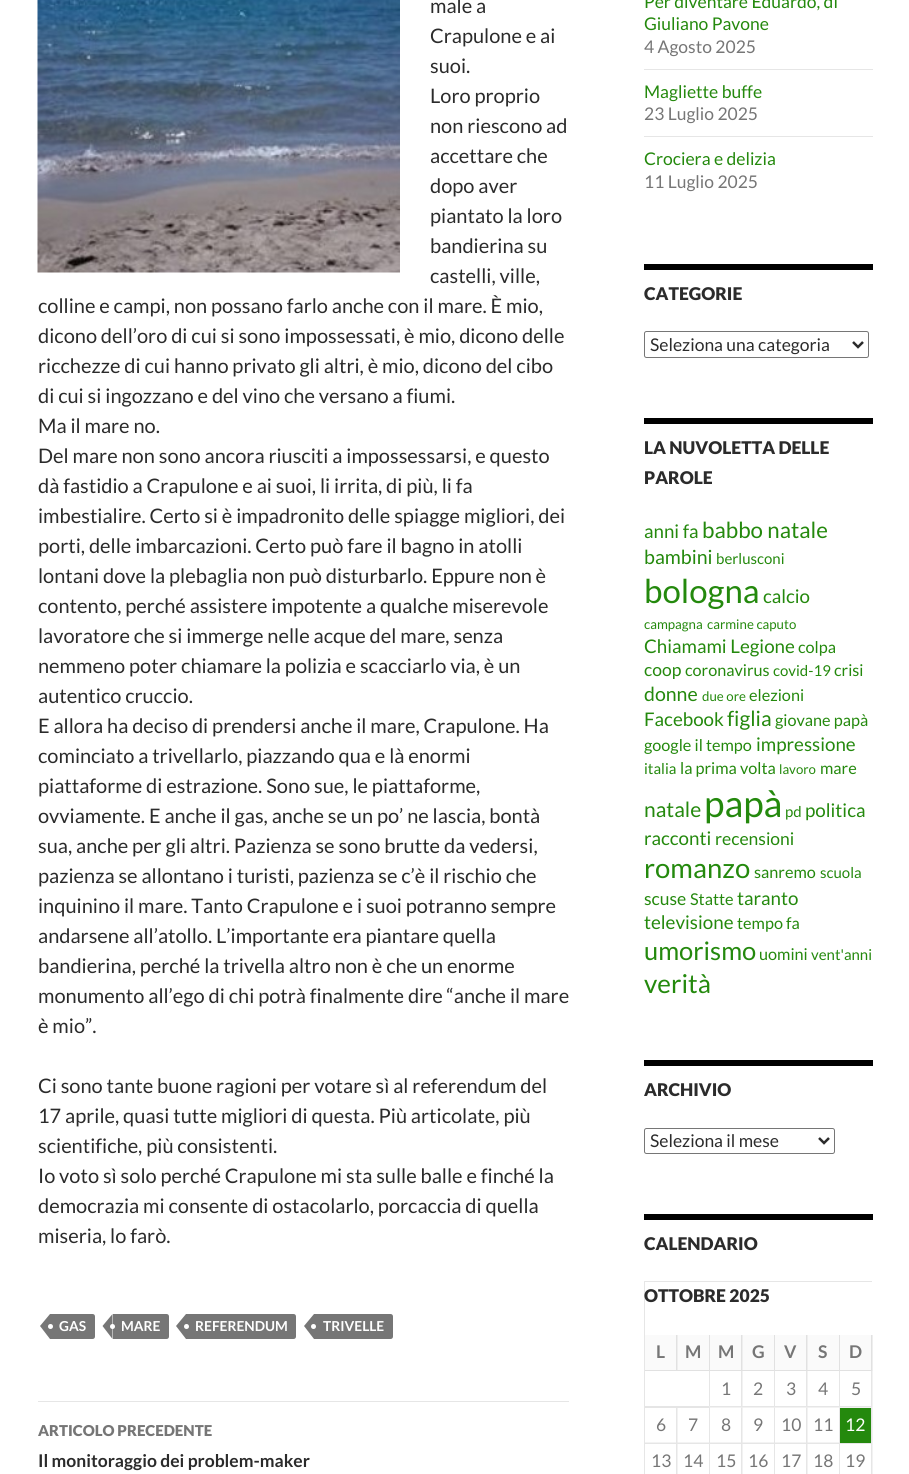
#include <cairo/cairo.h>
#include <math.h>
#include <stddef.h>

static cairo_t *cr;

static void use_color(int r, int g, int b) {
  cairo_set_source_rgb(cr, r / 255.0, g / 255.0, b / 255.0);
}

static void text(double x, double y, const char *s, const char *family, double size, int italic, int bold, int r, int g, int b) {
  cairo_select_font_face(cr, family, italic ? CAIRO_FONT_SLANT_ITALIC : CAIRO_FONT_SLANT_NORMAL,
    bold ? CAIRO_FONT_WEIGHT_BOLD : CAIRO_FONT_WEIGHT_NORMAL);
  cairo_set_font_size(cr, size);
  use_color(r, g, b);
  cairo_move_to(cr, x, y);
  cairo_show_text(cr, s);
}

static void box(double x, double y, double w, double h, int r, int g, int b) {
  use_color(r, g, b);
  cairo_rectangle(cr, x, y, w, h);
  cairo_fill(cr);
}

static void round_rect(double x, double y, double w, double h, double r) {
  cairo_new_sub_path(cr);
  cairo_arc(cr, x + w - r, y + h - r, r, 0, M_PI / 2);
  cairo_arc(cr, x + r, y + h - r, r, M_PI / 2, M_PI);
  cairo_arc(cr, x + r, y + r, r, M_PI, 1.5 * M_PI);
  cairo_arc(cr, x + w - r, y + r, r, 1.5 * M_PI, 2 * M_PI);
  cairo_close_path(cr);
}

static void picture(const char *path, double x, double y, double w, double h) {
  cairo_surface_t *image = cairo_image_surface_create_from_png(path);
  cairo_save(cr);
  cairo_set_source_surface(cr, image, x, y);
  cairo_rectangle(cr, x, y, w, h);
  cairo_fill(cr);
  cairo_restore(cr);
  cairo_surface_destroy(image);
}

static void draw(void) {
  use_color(255, 255, 255);
  cairo_paint(cr);
  picture("img_01.png", 37, 0, 363, 273);
  use_color(118, 118, 118);
  cairo_new_path(cr);
  cairo_move_to(cr, 50, 1314);
  cairo_line_to(cr, 92.5, 1314);
  cairo_curve_to(cr, 94, 1314, 95, 1315, 95, 1316.5);
  cairo_line_to(cr, 95, 1336.5);
  cairo_curve_to(cr, 95, 1338, 94, 1339, 92.5, 1339);
  cairo_line_to(cr, 50, 1339);
  cairo_close_path(cr);
  cairo_fill(cr);
  cairo_new_path(cr);
  cairo_move_to(cr, 50, 1314);
  cairo_line_to(cr, 50, 1339);
  cairo_line_to(cr, 40, 1326);
  cairo_close_path(cr);
  cairo_fill(cr);
  use_color(255, 255, 255);
  cairo_arc(cr, 50.5, 1326.5, 2.5, 0, 2 * M_PI);
  cairo_fill(cr);
  use_color(118, 118, 118);
  cairo_new_path(cr);
  cairo_move_to(cr, 113, 1314);
  cairo_line_to(cr, 166.5, 1314);
  cairo_curve_to(cr, 168, 1314, 169, 1315, 169, 1316.5);
  cairo_line_to(cr, 169, 1336.5);
  cairo_curve_to(cr, 169, 1338, 168, 1339, 166.5, 1339);
  cairo_line_to(cr, 113, 1339);
  cairo_close_path(cr);
  cairo_fill(cr);
  cairo_new_path(cr);
  cairo_move_to(cr, 112.5, 1314);
  cairo_line_to(cr, 112.5, 1339);
  cairo_line_to(cr, 102.5, 1326);
  cairo_close_path(cr);
  cairo_fill(cr);
  use_color(255, 255, 255);
  cairo_arc(cr, 112.5, 1326.5, 2.5, 0, 2 * M_PI);
  cairo_fill(cr);
  use_color(118, 118, 118);
  cairo_new_path(cr);
  cairo_move_to(cr, 186, 1314);
  cairo_line_to(cr, 293.5, 1314);
  cairo_curve_to(cr, 295, 1314, 296, 1315, 296, 1316.5);
  cairo_line_to(cr, 296, 1336.5);
  cairo_curve_to(cr, 296, 1338, 295, 1339, 293.5, 1339);
  cairo_line_to(cr, 186, 1339);
  cairo_close_path(cr);
  cairo_fill(cr);
  cairo_new_path(cr);
  cairo_move_to(cr, 186, 1314);
  cairo_line_to(cr, 186, 1339);
  cairo_line_to(cr, 176, 1326);
  cairo_close_path(cr);
  cairo_fill(cr);
  use_color(255, 255, 255);
  cairo_arc(cr, 186.5, 1326.5, 2.5, 0, 2 * M_PI);
  cairo_fill(cr);
  use_color(118, 118, 118);
  cairo_new_path(cr);
  cairo_move_to(cr, 314, 1314);
  cairo_line_to(cr, 390.5, 1314);
  cairo_curve_to(cr, 392, 1314, 393, 1315, 393, 1316.5);
  cairo_line_to(cr, 393, 1336.5);
  cairo_curve_to(cr, 393, 1338, 392, 1339, 390.5, 1339);
  cairo_line_to(cr, 314, 1339);
  cairo_close_path(cr);
  cairo_fill(cr);
  cairo_new_path(cr);
  cairo_move_to(cr, 314, 1314);
  cairo_line_to(cr, 314, 1339);
  cairo_line_to(cr, 304, 1326);
  cairo_close_path(cr);
  cairo_fill(cr);
  use_color(255, 255, 255);
  cairo_arc(cr, 313.5, 1326.5, 2.5, 0, 2 * M_PI);
  cairo_fill(cr);
  box(38, 1401, 531, 1, 230, 230, 230);
  box(644, 69, 229, 1, 230, 230, 230);
  box(644, 136, 229, 1, 230, 230, 230);
  box(644, 264, 229, 6, 0, 0, 0);
  round_rect(644.5, 331.5, 224, 26, 2);
  use_color(118, 118, 118);
  cairo_set_line_width(cr, 1);
  cairo_stroke(cr);
  cairo_new_path(cr);
  cairo_move_to(cr, 853, 342);
  cairo_line_to(cr, 858, 347);
  cairo_line_to(cr, 863, 342);
  use_color(43, 43, 43);
  cairo_set_line_width(cr, 2.5);
  cairo_stroke(cr);
  box(644, 418, 229, 6, 0, 0, 0);
  box(644, 1060, 229, 6, 0, 0, 0);
  round_rect(644.5, 1128.5, 190, 25, 2);
  use_color(118, 118, 118);
  cairo_set_line_width(cr, 1);
  cairo_stroke(cr);
  cairo_new_path(cr);
  cairo_move_to(cr, 819, 1138);
  cairo_line_to(cr, 824, 1143);
  cairo_line_to(cr, 829, 1138);
  use_color(43, 43, 43);
  cairo_set_line_width(cr, 2.5);
  cairo_stroke(cr);
  box(644, 1214, 229, 6, 0, 0, 0);
  use_color(230, 230, 230);
  cairo_new_path(cr);
  cairo_move_to(cr, 644, 1281);
  cairo_line_to(cr, 872, 1281);
  cairo_line_to(cr, 872, 1282);
  cairo_line_to(cr, 645, 1282);
  cairo_close_path(cr);
  cairo_fill(cr);
  cairo_set_source_rgba(cr, 0, 0, 0, 0.1);
  cairo_new_path(cr);
  cairo_move_to(cr, 644, 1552);
  cairo_line_to(cr, 644, 1281);
  cairo_line_to(cr, 645, 1282);
  cairo_line_to(cr, 645, 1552);
  cairo_close_path(cr);
  cairo_fill(cr);
  box(645, 1335, 228, 36, 250, 250, 250);
  use_color(225, 225, 225);
  cairo_new_path(cr);
  cairo_move_to(cr, 677.5, 1335);
  cairo_line_to(cr, 677.5, 1371);
  cairo_line_to(cr, 676, 1370);
  cairo_line_to(cr, 676, 1335);
  cairo_close_path(cr);
  cairo_fill(cr);
  cairo_set_source_rgba(cr, 0, 0, 0, 0.1);
  cairo_new_path(cr);
  cairo_move_to(cr, 677.5, 1371);
  cairo_line_to(cr, 645, 1371);
  cairo_line_to(cr, 645, 1370);
  cairo_line_to(cr, 676, 1370);
  cairo_close_path(cr);
  cairo_fill(cr);
  use_color(225, 225, 225);
  cairo_new_path(cr);
  cairo_move_to(cr, 710, 1335);
  cairo_line_to(cr, 710, 1371);
  cairo_line_to(cr, 709, 1370);
  cairo_line_to(cr, 709, 1335);
  cairo_close_path(cr);
  cairo_fill(cr);
  cairo_set_source_rgba(cr, 0, 0, 0, 0.1);
  cairo_new_path(cr);
  cairo_move_to(cr, 710, 1371);
  cairo_line_to(cr, 677.5, 1371);
  cairo_line_to(cr, 677.5, 1370);
  cairo_line_to(cr, 709, 1370);
  cairo_close_path(cr);
  cairo_fill(cr);
  use_color(225, 225, 225);
  cairo_new_path(cr);
  cairo_move_to(cr, 742.5, 1335);
  cairo_line_to(cr, 742.5, 1371);
  cairo_line_to(cr, 741, 1370);
  cairo_line_to(cr, 741, 1335);
  cairo_close_path(cr);
  cairo_fill(cr);
  cairo_set_source_rgba(cr, 0, 0, 0, 0.1);
  cairo_new_path(cr);
  cairo_move_to(cr, 742.5, 1371);
  cairo_line_to(cr, 710, 1371);
  cairo_line_to(cr, 710, 1370);
  cairo_line_to(cr, 741, 1370);
  cairo_close_path(cr);
  cairo_fill(cr);
  use_color(225, 225, 225);
  cairo_new_path(cr);
  cairo_move_to(cr, 775, 1335);
  cairo_line_to(cr, 775, 1371);
  cairo_line_to(cr, 774, 1370);
  cairo_line_to(cr, 774, 1335);
  cairo_close_path(cr);
  cairo_fill(cr);
  cairo_set_source_rgba(cr, 0, 0, 0, 0.1);
  cairo_new_path(cr);
  cairo_move_to(cr, 775, 1371);
  cairo_line_to(cr, 742.5, 1371);
  cairo_line_to(cr, 742.5, 1370);
  cairo_line_to(cr, 774, 1370);
  cairo_close_path(cr);
  cairo_fill(cr);
  use_color(225, 225, 225);
  cairo_new_path(cr);
  cairo_move_to(cr, 807.5, 1335);
  cairo_line_to(cr, 807.5, 1371);
  cairo_line_to(cr, 806, 1370);
  cairo_line_to(cr, 806, 1335);
  cairo_close_path(cr);
  cairo_fill(cr);
  cairo_set_source_rgba(cr, 0, 0, 0, 0.1);
  cairo_new_path(cr);
  cairo_move_to(cr, 807.5, 1371);
  cairo_line_to(cr, 775, 1371);
  cairo_line_to(cr, 775, 1370);
  cairo_line_to(cr, 806, 1370);
  cairo_close_path(cr);
  cairo_fill(cr);
  use_color(225, 225, 225);
  cairo_new_path(cr);
  cairo_move_to(cr, 840, 1335);
  cairo_line_to(cr, 840, 1371);
  cairo_line_to(cr, 839, 1370);
  cairo_line_to(cr, 839, 1335);
  cairo_close_path(cr);
  cairo_fill(cr);
  cairo_set_source_rgba(cr, 0, 0, 0, 0.1);
  cairo_new_path(cr);
  cairo_move_to(cr, 840, 1371);
  cairo_line_to(cr, 807.5, 1371);
  cairo_line_to(cr, 807.5, 1370);
  cairo_line_to(cr, 839, 1370);
  cairo_close_path(cr);
  cairo_fill(cr);
  use_color(225, 225, 225);
  cairo_new_path(cr);
  cairo_move_to(cr, 872.5, 1335);
  cairo_line_to(cr, 872.5, 1371);
  cairo_line_to(cr, 871, 1370);
  cairo_line_to(cr, 871, 1335);
  cairo_close_path(cr);
  cairo_fill(cr);
  cairo_set_source_rgba(cr, 0, 0, 0, 0.1);
  cairo_new_path(cr);
  cairo_move_to(cr, 872.5, 1371);
  cairo_line_to(cr, 840, 1371);
  cairo_line_to(cr, 840, 1370);
  cairo_line_to(cr, 871, 1370);
  cairo_close_path(cr);
  cairo_fill(cr);
  use_color(230, 230, 230);
  cairo_new_path(cr);
  cairo_move_to(cr, 710, 1371);
  cairo_line_to(cr, 710, 1407.5);
  cairo_line_to(cr, 709, 1406);
  cairo_line_to(cr, 709, 1371);
  cairo_close_path(cr);
  cairo_fill(cr);
  use_color(229, 229, 229);
  cairo_new_path(cr);
  cairo_move_to(cr, 710, 1408);
  cairo_line_to(cr, 645, 1408);
  cairo_line_to(cr, 645, 1406);
  cairo_line_to(cr, 709, 1406);
  cairo_close_path(cr);
  cairo_fill(cr);
  use_color(230, 230, 230);
  cairo_new_path(cr);
  cairo_move_to(cr, 742.5, 1371);
  cairo_line_to(cr, 742.5, 1407.5);
  cairo_line_to(cr, 741, 1406);
  cairo_line_to(cr, 741, 1371);
  cairo_close_path(cr);
  cairo_fill(cr);
  cairo_set_source_rgba(cr, 0, 0, 0, 0.1);
  cairo_new_path(cr);
  cairo_move_to(cr, 742.5, 1407.5);
  cairo_line_to(cr, 710, 1407.5);
  cairo_line_to(cr, 710, 1406);
  cairo_line_to(cr, 741, 1406);
  cairo_close_path(cr);
  cairo_fill(cr);
  use_color(230, 230, 230);
  cairo_new_path(cr);
  cairo_move_to(cr, 775, 1371);
  cairo_line_to(cr, 775, 1407.5);
  cairo_line_to(cr, 774, 1406);
  cairo_line_to(cr, 774, 1371);
  cairo_close_path(cr);
  cairo_fill(cr);
  cairo_set_source_rgba(cr, 0, 0, 0, 0.1);
  cairo_new_path(cr);
  cairo_move_to(cr, 775, 1407.5);
  cairo_line_to(cr, 742.5, 1407.5);
  cairo_line_to(cr, 742.5, 1406);
  cairo_line_to(cr, 774, 1406);
  cairo_close_path(cr);
  cairo_fill(cr);
  use_color(230, 230, 230);
  cairo_new_path(cr);
  cairo_move_to(cr, 807.5, 1371);
  cairo_line_to(cr, 807.5, 1407.5);
  cairo_line_to(cr, 806, 1406);
  cairo_line_to(cr, 806, 1371);
  cairo_close_path(cr);
  cairo_fill(cr);
  cairo_set_source_rgba(cr, 0, 0, 0, 0.1);
  cairo_new_path(cr);
  cairo_move_to(cr, 807.5, 1407.5);
  cairo_line_to(cr, 775, 1407.5);
  cairo_line_to(cr, 775, 1406);
  cairo_line_to(cr, 806, 1406);
  cairo_close_path(cr);
  cairo_fill(cr);
  use_color(230, 230, 230);
  cairo_new_path(cr);
  cairo_move_to(cr, 840, 1371);
  cairo_line_to(cr, 840, 1407.5);
  cairo_line_to(cr, 839, 1406);
  cairo_line_to(cr, 839, 1371);
  cairo_close_path(cr);
  cairo_fill(cr);
  cairo_set_source_rgba(cr, 0, 0, 0, 0.1);
  cairo_new_path(cr);
  cairo_move_to(cr, 840, 1407.5);
  cairo_line_to(cr, 807.5, 1407.5);
  cairo_line_to(cr, 807.5, 1406);
  cairo_line_to(cr, 839, 1406);
  cairo_close_path(cr);
  cairo_fill(cr);
  use_color(230, 230, 230);
  cairo_new_path(cr);
  cairo_move_to(cr, 872.5, 1371);
  cairo_line_to(cr, 872.5, 1407.5);
  cairo_line_to(cr, 871, 1406);
  cairo_line_to(cr, 871, 1371);
  cairo_close_path(cr);
  cairo_fill(cr);
  cairo_set_source_rgba(cr, 0, 0, 0, 0.1);
  cairo_new_path(cr);
  cairo_move_to(cr, 872.5, 1407.5);
  cairo_line_to(cr, 840, 1407.5);
  cairo_line_to(cr, 840, 1406);
  cairo_line_to(cr, 871, 1406);
  cairo_close_path(cr);
  cairo_fill(cr);
  use_color(230, 230, 230);
  cairo_new_path(cr);
  cairo_move_to(cr, 677.5, 1407.5);
  cairo_line_to(cr, 677.5, 1444);
  cairo_line_to(cr, 676, 1442.5);
  cairo_line_to(cr, 676, 1407.5);
  cairo_close_path(cr);
  cairo_fill(cr);
  cairo_set_source_rgba(cr, 0, 0, 0, 0.1);
  cairo_new_path(cr);
  cairo_move_to(cr, 677.5, 1444);
  cairo_line_to(cr, 645, 1444);
  cairo_line_to(cr, 645, 1442.5);
  cairo_line_to(cr, 676, 1442.5);
  cairo_close_path(cr);
  cairo_fill(cr);
  use_color(230, 230, 230);
  cairo_new_path(cr);
  cairo_move_to(cr, 710, 1407.5);
  cairo_line_to(cr, 710, 1444);
  cairo_line_to(cr, 709, 1442.5);
  cairo_line_to(cr, 709, 1407.5);
  cairo_close_path(cr);
  cairo_fill(cr);
  cairo_set_source_rgba(cr, 0, 0, 0, 0.1);
  cairo_new_path(cr);
  cairo_move_to(cr, 710, 1444);
  cairo_line_to(cr, 677.5, 1444);
  cairo_line_to(cr, 677.5, 1442.5);
  cairo_line_to(cr, 709, 1442.5);
  cairo_close_path(cr);
  cairo_fill(cr);
  use_color(230, 230, 230);
  cairo_new_path(cr);
  cairo_move_to(cr, 742.5, 1407.5);
  cairo_line_to(cr, 742.5, 1444);
  cairo_line_to(cr, 741, 1442.5);
  cairo_line_to(cr, 741, 1407.5);
  cairo_close_path(cr);
  cairo_fill(cr);
  cairo_set_source_rgba(cr, 0, 0, 0, 0.1);
  cairo_new_path(cr);
  cairo_move_to(cr, 742.5, 1444);
  cairo_line_to(cr, 710, 1444);
  cairo_line_to(cr, 710, 1442.5);
  cairo_line_to(cr, 741, 1442.5);
  cairo_close_path(cr);
  cairo_fill(cr);
  use_color(230, 230, 230);
  cairo_new_path(cr);
  cairo_move_to(cr, 775, 1407.5);
  cairo_line_to(cr, 775, 1444);
  cairo_line_to(cr, 774, 1442.5);
  cairo_line_to(cr, 774, 1407.5);
  cairo_close_path(cr);
  cairo_fill(cr);
  cairo_set_source_rgba(cr, 0, 0, 0, 0.1);
  cairo_new_path(cr);
  cairo_move_to(cr, 775, 1444);
  cairo_line_to(cr, 742.5, 1444);
  cairo_line_to(cr, 742.5, 1442.5);
  cairo_line_to(cr, 774, 1442.5);
  cairo_close_path(cr);
  cairo_fill(cr);
  use_color(230, 230, 230);
  cairo_new_path(cr);
  cairo_move_to(cr, 807.5, 1407.5);
  cairo_line_to(cr, 807.5, 1444);
  cairo_line_to(cr, 806, 1442.5);
  cairo_line_to(cr, 806, 1407.5);
  cairo_close_path(cr);
  cairo_fill(cr);
  cairo_set_source_rgba(cr, 0, 0, 0, 0.1);
  cairo_new_path(cr);
  cairo_move_to(cr, 807.5, 1444);
  cairo_line_to(cr, 775, 1444);
  cairo_line_to(cr, 775, 1442.5);
  cairo_line_to(cr, 806, 1442.5);
  cairo_close_path(cr);
  cairo_fill(cr);
  use_color(230, 230, 230);
  cairo_new_path(cr);
  cairo_move_to(cr, 840, 1407.5);
  cairo_line_to(cr, 840, 1444);
  cairo_line_to(cr, 839, 1442.5);
  cairo_line_to(cr, 839, 1407.5);
  cairo_close_path(cr);
  cairo_fill(cr);
  cairo_set_source_rgba(cr, 0, 0, 0, 0.1);
  cairo_new_path(cr);
  cairo_move_to(cr, 840, 1444);
  cairo_line_to(cr, 807.5, 1444);
  cairo_line_to(cr, 807.5, 1442.5);
  cairo_line_to(cr, 839, 1442.5);
  cairo_close_path(cr);
  cairo_fill(cr);
  use_color(230, 230, 230);
  cairo_new_path(cr);
  cairo_move_to(cr, 872.5, 1407.5);
  cairo_line_to(cr, 872.5, 1444);
  cairo_line_to(cr, 871, 1442.5);
  cairo_line_to(cr, 871, 1407.5);
  cairo_close_path(cr);
  cairo_fill(cr);
  cairo_set_source_rgba(cr, 0, 0, 0, 0.1);
  cairo_new_path(cr);
  cairo_move_to(cr, 872.5, 1444);
  cairo_line_to(cr, 840, 1444);
  cairo_line_to(cr, 840, 1442.5);
  cairo_line_to(cr, 871, 1442.5);
  cairo_close_path(cr);
  cairo_fill(cr);
  box(840, 1408, 31, 35, 36, 137, 13);
  use_color(230, 230, 230);
  cairo_new_path(cr);
  cairo_move_to(cr, 677.5, 1444);
  cairo_line_to(cr, 677.5, 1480);
  cairo_line_to(cr, 676, 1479);
  cairo_line_to(cr, 676, 1444);
  cairo_close_path(cr);
  cairo_move_to(cr, 710, 1444);
  cairo_line_to(cr, 710, 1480);
  cairo_line_to(cr, 709, 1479);
  cairo_line_to(cr, 709, 1444);
  cairo_close_path(cr);
  cairo_fill(cr);
  cairo_new_path(cr);
  cairo_move_to(cr, 742.5, 1444);
  cairo_line_to(cr, 742.5, 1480);
  cairo_line_to(cr, 741, 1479);
  cairo_line_to(cr, 741, 1444);
  cairo_close_path(cr);
  cairo_move_to(cr, 775, 1444);
  cairo_line_to(cr, 775, 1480);
  cairo_line_to(cr, 774, 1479);
  cairo_line_to(cr, 774, 1444);
  cairo_close_path(cr);
  cairo_fill(cr);
  cairo_new_path(cr);
  cairo_move_to(cr, 807.5, 1444);
  cairo_line_to(cr, 807.5, 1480);
  cairo_line_to(cr, 806, 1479);
  cairo_line_to(cr, 806, 1444);
  cairo_close_path(cr);
  cairo_move_to(cr, 840, 1444);
  cairo_line_to(cr, 840, 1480);
  cairo_line_to(cr, 839, 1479);
  cairo_line_to(cr, 839, 1444);
  cairo_close_path(cr);
  cairo_fill(cr);
  cairo_new_path(cr);
  cairo_move_to(cr, 872.5, 1444);
  cairo_line_to(cr, 872.5, 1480);
  cairo_line_to(cr, 871, 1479);
  cairo_line_to(cr, 871, 1444);
  cairo_close_path(cr);
  cairo_fill(cr);
  text(430, 13, "male a", "Lato", 20, 0, 0, 43, 43, 43);
  text(430, 43, "Crapulone e ai", "Lato", 20, 0, 0, 43, 43, 43);
  text(430, 73, "suoi.", "Lato", 20, 0, 0, 43, 43, 43);
  text(430, 103, "Loro proprio", "Lato", 20, 0, 0, 43, 43, 43);
  text(430, 133, "non riescono ad", "Lato", 20, 0, 0, 43, 43, 43);
  text(430, 163, "accettare che", "Lato", 20, 0, 0, 43, 43, 43);
  text(430, 193, "dopo aver", "Lato", 20, 0, 0, 43, 43, 43);
  text(430, 223, "piantato la loro", "Lato", 20, 0, 0, 43, 43, 43);
  text(430, 253, "bandierina su", "Lato", 20, 0, 0, 43, 43, 43);
  text(430, 283, "castelli, ville,", "Lato", 20, 0, 0, 43, 43, 43);
  text(38, 313, "colline e campi, non possano farlo anche con il mare. È mio,", "Lato", 20, 0, 0, 43, 43, 43);
  text(38, 343, "dicono dell’oro di cui si sono impossessati, è mio, dicono delle", "Lato", 20, 0, 0, 43, 43, 43);
  text(38, 373, "ricchezze di cui hanno privato gli altri, è mio, dicono del cibo", "Lato", 20, 0, 0, 43, 43, 43);
  text(38, 403, "di cui si ingozzano e del vino che versano a fiumi.", "Lato", 20, 0, 0, 43, 43, 43);
  text(38, 433, "Ma il mare no.", "Lato", 20, 0, 0, 43, 43, 43);
  text(38, 463, "Del mare non sono ancora riusciti a impossessarsi, e questo", "Lato", 20, 0, 0, 43, 43, 43);
  text(38, 493, "dà fastidio a Crapulone e ai suoi, li irrita, di più, li fa", "Lato", 20, 0, 0, 43, 43, 43);
  text(38, 523, "imbestialire. Certo si è impadronito delle spiagge migliori, dei", "Lato", 20, 0, 0, 43, 43, 43);
  text(38, 553, "porti, delle imbarcazioni. Certo può fare il bagno in atolli", "Lato", 20, 0, 0, 43, 43, 43);
  text(38, 583, "lontani dove la plebaglia non può disturbarlo. Eppure non è", "Lato", 20, 0, 0, 43, 43, 43);
  text(38, 613, "contento, perché assistere impotente a qualche miserevole", "Lato", 20, 0, 0, 43, 43, 43);
  text(38, 643, "lavoratore che si immerge nelle acque del mare, senza", "Lato", 20, 0, 0, 43, 43, 43);
  text(38, 673, "nemmeno poter chiamare la polizia e scacciarlo via, è un", "Lato", 20, 0, 0, 43, 43, 43);
  text(38, 703, "autentico cruccio.", "Lato", 20, 0, 0, 43, 43, 43);
  text(38, 733, "E allora ha deciso di prendersi anche il mare, Crapulone. Ha", "Lato", 20, 0, 0, 43, 43, 43);
  text(38, 763, "cominciato a trivellarlo, piazzando qua e là enormi", "Lato", 20, 0, 0, 43, 43, 43);
  text(38, 793, "piattaforme di estrazione. Sono sue, le piattaforme,", "Lato", 20, 0, 0, 43, 43, 43);
  text(38, 823, "ovviamente. E anche il gas, anche se un po’ ne lascia, bontà", "Lato", 20, 0, 0, 43, 43, 43);
  text(38, 853, "sua, anche per gli altri. Pazienza se sono brutte da vedersi,", "Lato", 20, 0, 0, 43, 43, 43);
  text(38, 883, "pazienza se allontano i turisti, pazienza se c’è il rischio che", "Lato", 20, 0, 0, 43, 43, 43);
  text(38, 913, "inquinino il mare. Tanto Crapulone e i suoi potranno sempre", "Lato", 20, 0, 0, 43, 43, 43);
  text(38, 943, "andarsene all’atollo. L’importante era piantare quella", "Lato", 20, 0, 0, 43, 43, 43);
  text(38, 973, "bandierina, perché la trivella altro non è che un enorme", "Lato", 20, 0, 0, 43, 43, 43);
  text(38, 1003, "monumento all’ego di chi potrà finalmente dire “anche il mare", "Lato", 20, 0, 0, 43, 43, 43);
  text(38, 1033, "è mio”.", "Lato", 20, 0, 0, 43, 43, 43);
  text(38, 1093, "Ci sono tante buone ragioni per votare sì al referendum del", "Lato", 20, 0, 0, 43, 43, 43);
  text(38, 1123, "17 aprile, quasi tutte migliori di questa. Più articolate, più", "Lato", 20, 0, 0, 43, 43, 43);
  text(38, 1153, "scientifiche, più consistenti.", "Lato", 20, 0, 0, 43, 43, 43);
  text(38, 1183, "Io voto sì solo perché Crapulone mi sta sulle balle e finché la", "Lato", 20, 0, 0, 43, 43, 43);
  text(38, 1213, "democrazia mi consente di ostacolarlo, porcaccia di quella", "Lato", 20, 0, 0, 43, 43, 43);
  text(38, 1243, "miseria, lo farò.", "Lato", 20, 0, 0, 43, 43, 43);
  text(59, 1331, "GAS", "Lato", 13.75, 0, 1, 255, 255, 255);
  text(121, 1331, "MARE", "Lato", 13.75, 0, 1, 255, 255, 255);
  text(195, 1331, "REFERENDUM", "Lato", 13.75, 0, 1, 255, 255, 255);
  text(323, 1331, "TRIVELLE", "Lato", 13.75, 0, 1, 255, 255, 255);
  text(38, 1436, "ARTICOLO PRECEDENTE", "Lato Black", 15, 0, 0, 118, 118, 118);
  text(38, 1467, "Il monitoraggio dei problem-maker", "Lato", 17.5, 0, 1, 43, 43, 43);
  text(644, 8, "Per diventare Eduardo, di", "Lato", 17.5, 0, 0, 36, 137, 13);
  text(644, 30, "Giuliano Pavone", "Lato", 17.5, 0, 0, 36, 137, 13);
  text(644, 53, "4 Agosto 2025", "Lato", 17.5, 0, 0, 118, 118, 118);
  text(644, 98, "Magliette buffe", "Lato", 17.5, 0, 0, 36, 137, 13);
  text(644, 120, "23 Luglio 2025", "Lato", 17.5, 0, 0, 118, 118, 118);
  text(644, 165, "Crociera e delizia", "Lato", 17.5, 0, 0, 36, 137, 13);
  text(644, 188, "11 Luglio 2025", "Lato", 17.5, 0, 0, 118, 118, 118);
  text(644, 300, "CATEGORIE", "Lato Black", 17.5, 0, 0, 43, 43, 43);
  text(650, 351, "Seleziona una categoria", "Lato", 17.5, 0, 0, 43, 43, 43);
  text(644, 454, "LA NUVOLETTA DELLE", "Lato Black", 17.5, 0, 0, 43, 43, 43);
  text(644, 484, "PAROLE", "Lato Black", 17.5, 0, 0, 43, 43, 43);
  text(644, 538, "anni fa", "Lato", 18.75, 0, 0, 36, 137, 13);
  text(702, 538, "babbo natale", "Lato", 22.25, 0, 0, 36, 137, 13);
  text(644, 564, "bambini", "Lato", 19.5, 0, 0, 36, 137, 13);
  text(716, 564, "berlusconi", "Lato", 15, 0, 0, 36, 137, 13);
  text(644, 603, "bologna", "Lato", 33, 0, 0, 36, 137, 13);
  text(763, 603, "calcio", "Lato", 18.75, 0, 0, 36, 137, 13);
  text(644, 629, "campagna", "Lato", 13.25, 0, 0, 36, 137, 13);
  text(707, 629, "carmine caputo", "Lato", 13.25, 0, 0, 36, 137, 13);
  text(644, 653, "Chiamami Legione", "Lato", 18.75, 0, 0, 36, 137, 13);
  text(798, 653, "colpa", "Lato", 16.25, 0, 0, 36, 137, 13);
  text(644, 676, "coop", "Lato", 17.5, 0, 0, 36, 137, 13);
  text(685, 676, "coronavirus", "Lato", 16.25, 0, 0, 36, 137, 13);
  text(773, 676, "covid-19", "Lato", 15, 0, 0, 36, 137, 13);
  text(834, 676, "crisi", "Lato", 16.25, 0, 0, 36, 137, 13);
  text(644, 701, "donne", "Lato", 19.5, 0, 0, 36, 137, 13);
  text(702, 701, "due ore", "Lato", 13.25, 0, 0, 36, 137, 13);
  text(749, 701, "elezioni", "Lato", 16.25, 0, 0, 36, 137, 13);
  text(644, 726, "Facebook", "Lato", 18.75, 0, 0, 36, 137, 13);
  text(727, 726, "figlia", "Lato", 21, 0, 0, 36, 137, 13);
  text(775, 726, "giovane papà", "Lato", 16.25, 0, 0, 36, 137, 13);
  text(644, 751, "google il tempo", "Lato", 16.25, 0, 0, 36, 137, 13);
  text(756, 751, "impressione", "Lato", 18.75, 0, 0, 36, 137, 13);
  text(644, 774, "italia", "Lato", 15, 0, 0, 36, 137, 13);
  text(680, 774, "la prima volta", "Lato", 16.25, 0, 0, 36, 137, 13);
  text(779, 774, "lavoro", "Lato", 13.25, 0, 0, 36, 137, 13);
  text(820, 774, "mare", "Lato", 16.25, 0, 0, 36, 137, 13);
  text(644, 817, "natale", "Lato", 21, 0, 0, 36, 137, 13);
  text(704, 817, "papà", "Lato", 37, 0, 0, 36, 137, 13);
  text(785, 817, "pd", "Lato", 15, 0, 0, 36, 137, 13);
  text(805, 817, "politica", "Lato", 18.75, 0, 0, 36, 137, 13);
  text(644, 845, "racconti", "Lato", 18.75, 0, 0, 36, 137, 13);
  text(715, 845, "recensioni", "Lato", 17.5, 0, 0, 36, 137, 13);
  text(644, 878, "romanzo", "Lato", 27.5, 0, 0, 36, 137, 13);
  text(754, 878, "sanremo", "Lato", 16.25, 0, 0, 36, 137, 13);
  text(820, 878, "scuola", "Lato", 15, 0, 0, 36, 137, 13);
  text(644, 905, "scuse", "Lato", 17.5, 0, 0, 36, 137, 13);
  text(690, 905, "Statte", "Lato", 16.25, 0, 0, 36, 137, 13);
  text(737, 905, "taranto", "Lato", 18.75, 0, 0, 36, 137, 13);
  text(644, 929, "televisione", "Lato", 18.75, 0, 0, 36, 137, 13);
  text(737, 929, "tempo fa", "Lato", 16.25, 0, 0, 36, 137, 13);
  text(644, 960, "umorismo", "Lato", 25.5, 0, 0, 36, 137, 13);
  text(759, 960, "uomini", "Lato", 16.25, 0, 0, 36, 137, 13);
  text(811, 960, "vent'anni", "Lato", 15, 0, 0, 36, 137, 13);
  text(644, 993, "verità", "Lato", 26, 0, 0, 36, 137, 13);
  text(644, 1096, "ARCHIVIO", "Lato Black", 17.5, 0, 0, 43, 43, 43);
  text(650, 1147, "Seleziona il mese", "Lato", 17.5, 0, 0, 43, 43, 43);
  text(644, 1250, "CALENDARIO", "Lato Black", 17.5, 0, 0, 43, 43, 43);
  text(644, 1302, "OTTOBRE 2025", "Lato Black", 17.5, 0, 0, 43, 43, 43);
  text(656, 1358, "L", "Lato", 17.5, 0, 1, 118, 118, 118);
  text(685, 1358, "M", "Lato", 17.5, 0, 1, 118, 118, 118);
  text(718, 1358, "M", "Lato", 17.5, 0, 1, 118, 118, 118);
  text(752, 1358, "G", "Lato", 17.5, 0, 1, 118, 118, 118);
  text(784, 1358, "V", "Lato", 17.5, 0, 1, 118, 118, 118);
  text(818, 1358, "S", "Lato", 17.5, 0, 1, 118, 118, 118);
  text(849, 1358, "D", "Lato", 17.5, 0, 1, 118, 118, 118);
  text(721, 1395, "1", "Lato", 17.5, 0, 0, 118, 118, 118);
  text(753, 1395, "2", "Lato", 17.5, 0, 0, 118, 118, 118);
  text(786, 1395, "3", "Lato", 17.5, 0, 0, 118, 118, 118);
  text(818, 1395, "4", "Lato", 17.5, 0, 0, 118, 118, 118);
  text(851, 1395, "5", "Lato", 17.5, 0, 0, 118, 118, 118);
  text(656, 1431, "6", "Lato", 17.5, 0, 0, 118, 118, 118);
  text(688, 1431, "7", "Lato", 17.5, 0, 0, 118, 118, 118);
  text(721, 1431, "8", "Lato", 17.5, 0, 0, 118, 118, 118);
  text(753, 1431, "9", "Lato", 17.5, 0, 0, 118, 118, 118);
  text(781, 1431, "10", "Lato", 17.5, 0, 0, 118, 118, 118);
  text(813, 1431, "11", "Lato", 17.5, 0, 0, 118, 118, 118);
  text(845, 1431, "12", "Lato", 17.5, 0, 0, 255, 255, 255);
  text(651, 1467, "13", "Lato", 17.5, 0, 0, 118, 118, 118);
  text(683, 1467, "14", "Lato", 17.5, 0, 0, 118, 118, 118);
  text(716, 1467, "15", "Lato", 17.5, 0, 0, 118, 118, 118);
  text(748, 1467, "16", "Lato", 17.5, 0, 0, 118, 118, 118);
  text(781, 1467, "17", "Lato", 17.5, 0, 0, 118, 118, 118);
  text(813, 1467, "18", "Lato", 17.5, 0, 0, 118, 118, 118);
  text(845, 1467, "19", "Lato", 17.5, 0, 0, 118, 118, 118);
}

int main(void) {
  cairo_surface_t *surface = cairo_image_surface_create(CAIRO_FORMAT_RGB24, 909, 1474);
  cr = cairo_create(surface);
  cairo_font_options_t *options = cairo_font_options_create();
  cairo_font_options_set_hint_metrics(options, CAIRO_HINT_METRICS_OFF);
  cairo_font_options_set_hint_style(options, CAIRO_HINT_STYLE_NONE);
  cairo_set_font_options(cr, options);
  cairo_set_miter_limit(cr, 4);
  draw();
  cairo_surface_write_to_png(surface, "out.png");
  cairo_font_options_destroy(options);
  cairo_destroy(cr);
  cairo_surface_destroy(surface);
  return 0;
}
